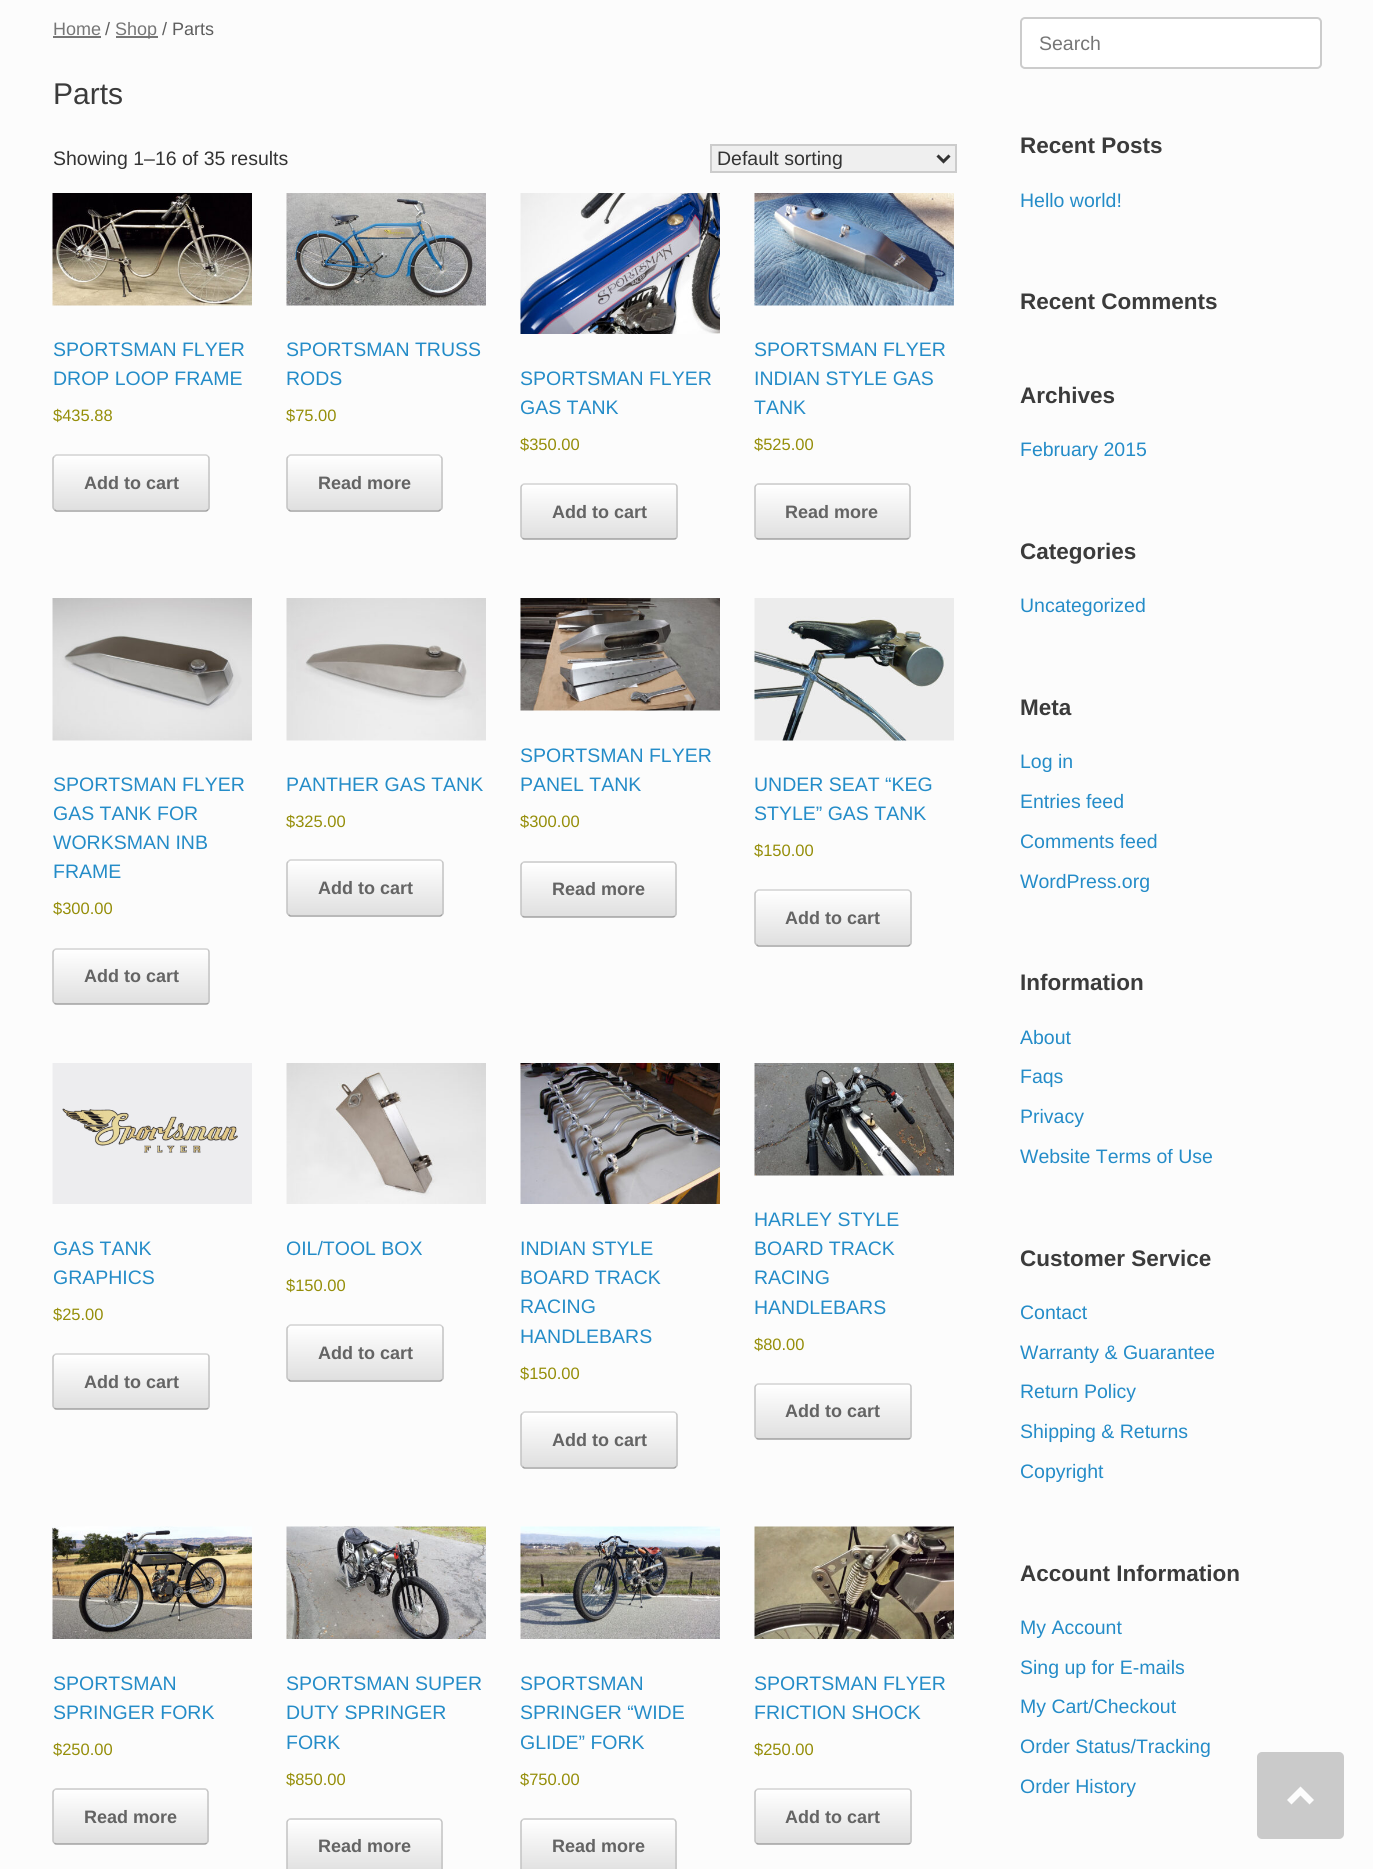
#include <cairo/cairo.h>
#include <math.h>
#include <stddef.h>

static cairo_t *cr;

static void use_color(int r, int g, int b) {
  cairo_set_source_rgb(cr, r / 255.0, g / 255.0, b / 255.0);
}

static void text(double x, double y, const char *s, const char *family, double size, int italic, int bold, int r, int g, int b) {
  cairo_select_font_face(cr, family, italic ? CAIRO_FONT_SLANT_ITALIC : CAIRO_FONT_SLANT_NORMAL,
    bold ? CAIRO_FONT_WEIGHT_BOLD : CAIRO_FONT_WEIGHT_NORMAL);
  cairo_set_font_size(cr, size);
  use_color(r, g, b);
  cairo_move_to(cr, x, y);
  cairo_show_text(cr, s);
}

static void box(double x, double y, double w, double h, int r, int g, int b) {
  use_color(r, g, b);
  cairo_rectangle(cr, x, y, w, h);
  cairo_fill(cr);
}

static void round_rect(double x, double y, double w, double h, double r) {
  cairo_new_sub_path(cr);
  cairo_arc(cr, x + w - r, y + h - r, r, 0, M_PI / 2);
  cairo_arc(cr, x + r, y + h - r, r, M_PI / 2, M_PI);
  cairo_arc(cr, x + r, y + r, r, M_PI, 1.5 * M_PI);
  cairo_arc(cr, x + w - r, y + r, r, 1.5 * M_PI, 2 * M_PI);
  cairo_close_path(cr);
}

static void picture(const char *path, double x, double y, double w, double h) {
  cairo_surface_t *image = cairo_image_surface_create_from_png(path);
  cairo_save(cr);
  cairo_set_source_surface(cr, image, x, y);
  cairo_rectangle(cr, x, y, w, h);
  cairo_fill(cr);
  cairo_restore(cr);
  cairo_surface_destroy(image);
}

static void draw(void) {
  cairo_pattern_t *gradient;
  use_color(252, 252, 252);
  cairo_paint(cr);
  box(53, 36, 48, 2, 118, 118, 118);
  box(116, 36, 42, 2, 118, 118, 118);
  use_color(239, 239, 239);
  cairo_rectangle(cr, 711, 145, 245, 27);
  cairo_fill_preserve(cr);
  use_color(204, 204, 204);
  cairo_stroke(cr);
  cairo_new_path(cr);
  cairo_move_to(cr, 937.5, 155.5);
  cairo_line_to(cr, 943.5, 161.5);
  cairo_line_to(cr, 949.5, 155.5);
  use_color(51, 51, 51);
  cairo_set_line_width(cr, 3);
  cairo_stroke(cr);
  picture("img_01.png", 52, 193, 200, 113);
  cairo_save(cr);
  round_rect(53, 455, 157, 57, 5);
  cairo_clip(cr);
  gradient = cairo_pattern_create_linear(54, 510, 54, 456);
  cairo_pattern_add_color_stop_rgba(gradient, 0, 0.875, 0.875, 0.875, 1);
  cairo_pattern_add_color_stop_rgba(gradient, 1, 1, 1, 1, 1);
  cairo_set_source(cr, gradient);
  cairo_pattern_destroy(gradient);
  cairo_rectangle(cr, 53, 456, 157, 54);
  cairo_fill(cr);
  gradient = cairo_pattern_create_linear(54, 564, 54, 510);
  cairo_pattern_add_color_stop_rgba(gradient, 0, 0.875, 0.875, 0.875, 1);
  cairo_pattern_add_color_stop_rgba(gradient, 1, 1, 1, 1, 1);
  cairo_set_source(cr, gradient);
  cairo_pattern_destroy(gradient);
  cairo_rectangle(cr, 53, 510, 157, 2);
  cairo_fill(cr);
  cairo_restore(cr);
  cairo_new_path(cr);
  cairo_move_to(cr, 54.5, 456.5);
  cairo_curve_to(cr, 55, 455.5, 56, 455, 57, 455);
  cairo_line_to(cr, 205.5, 455);
  cairo_curve_to(cr, 206.5, 455, 207.5, 455.5, 208, 456.5);
  use_color(210, 210, 210);
  cairo_set_line_width(cr, 1.5);
  cairo_stroke(cr);
  cairo_new_path(cr);
  cairo_move_to(cr, 208, 456.5);
  cairo_curve_to(cr, 209, 457, 209, 458, 209, 459);
  cairo_line_to(cr, 209, 507);
  cairo_curve_to(cr, 209, 508, 209, 509, 208, 509.5);
  use_color(195, 195, 195);
  cairo_stroke(cr);
  cairo_new_path(cr);
  cairo_move_to(cr, 208, 509.5);
  cairo_curve_to(cr, 207.5, 510.5, 206.5, 511, 205.5, 511);
  cairo_line_to(cr, 57, 511);
  cairo_curve_to(cr, 56, 511, 55, 510.5, 54.5, 509.5);
  use_color(159, 159, 159);
  cairo_stroke(cr);
  cairo_new_path(cr);
  cairo_move_to(cr, 54.5, 509.5);
  cairo_curve_to(cr, 53.5, 509, 53, 508, 53, 507);
  cairo_line_to(cr, 53, 459);
  cairo_curve_to(cr, 53, 458, 53.5, 457, 54.5, 456.5);
  use_color(195, 195, 195);
  cairo_stroke(cr);
  picture("img_02.png", 286, 193, 200, 113);
  cairo_save(cr);
  round_rect(287, 455, 156, 57, 5);
  cairo_clip(cr);
  gradient = cairo_pattern_create_linear(288, 510, 288, 456);
  cairo_pattern_add_color_stop_rgba(gradient, 0, 0.875, 0.875, 0.875, 1);
  cairo_pattern_add_color_stop_rgba(gradient, 1, 1, 1, 1, 1);
  cairo_set_source(cr, gradient);
  cairo_pattern_destroy(gradient);
  cairo_rectangle(cr, 287, 456, 156, 54);
  cairo_fill(cr);
  gradient = cairo_pattern_create_linear(288, 564, 288, 510);
  cairo_pattern_add_color_stop_rgba(gradient, 0, 0.875, 0.875, 0.875, 1);
  cairo_pattern_add_color_stop_rgba(gradient, 1, 1, 1, 1, 1);
  cairo_set_source(cr, gradient);
  cairo_pattern_destroy(gradient);
  cairo_rectangle(cr, 287, 510, 156, 2);
  cairo_fill(cr);
  cairo_restore(cr);
  cairo_new_path(cr);
  cairo_move_to(cr, 288.5, 456.5);
  cairo_curve_to(cr, 289, 455.5, 290, 455, 291, 455);
  cairo_line_to(cr, 438, 455);
  cairo_curve_to(cr, 439, 455, 440, 455.5, 440.5, 456.5);
  use_color(210, 210, 210);
  cairo_stroke(cr);
  cairo_new_path(cr);
  cairo_move_to(cr, 440.5, 456.5);
  cairo_curve_to(cr, 441.5, 457, 442, 458, 442, 459);
  cairo_line_to(cr, 442, 507);
  cairo_curve_to(cr, 442, 508, 441.5, 509, 440.5, 509.5);
  use_color(195, 195, 195);
  cairo_stroke(cr);
  cairo_new_path(cr);
  cairo_move_to(cr, 440.5, 509.5);
  cairo_curve_to(cr, 440, 510.5, 439, 511, 438, 511);
  cairo_line_to(cr, 291, 511);
  cairo_curve_to(cr, 290, 511, 289, 510.5, 288.5, 509.5);
  use_color(159, 159, 159);
  cairo_stroke(cr);
  cairo_new_path(cr);
  cairo_move_to(cr, 288.5, 509.5);
  cairo_curve_to(cr, 287.5, 509, 287, 508, 287, 507);
  cairo_line_to(cr, 287, 459);
  cairo_curve_to(cr, 287, 458, 287.5, 457, 288.5, 456.5);
  use_color(195, 195, 195);
  cairo_stroke(cr);
  picture("img_03.png", 520, 193, 200, 141);
  cairo_save(cr);
  round_rect(521, 483, 157, 57, 5);
  cairo_clip(cr);
  gradient = cairo_pattern_create_linear(522, 539, 522, 485);
  cairo_pattern_add_color_stop_rgba(gradient, 0, 0.875, 0.875, 0.875, 1);
  cairo_pattern_add_color_stop_rgba(gradient, 1, 1, 1, 1, 1);
  cairo_set_source(cr, gradient);
  cairo_pattern_destroy(gradient);
  cairo_rectangle(cr, 521, 485, 157, 54);
  cairo_fill(cr);
  cairo_restore(cr);
  cairo_new_path(cr);
  cairo_move_to(cr, 522.5, 485);
  cairo_curve_to(cr, 523, 484, 524, 484, 525, 484);
  cairo_line_to(cr, 673.5, 484);
  cairo_curve_to(cr, 674.5, 484, 675.5, 484, 676, 485);
  use_color(210, 210, 210);
  cairo_stroke(cr);
  cairo_new_path(cr);
  cairo_move_to(cr, 676, 485);
  cairo_curve_to(cr, 677, 485.5, 677, 486.5, 677, 487.5);
  cairo_line_to(cr, 677, 535.5);
  cairo_curve_to(cr, 677, 536.5, 677, 537.5, 676, 538);
  use_color(195, 195, 195);
  cairo_stroke(cr);
  cairo_new_path(cr);
  cairo_move_to(cr, 676, 538);
  cairo_curve_to(cr, 675.5, 539, 674.5, 539, 673.5, 539);
  cairo_line_to(cr, 525, 539);
  cairo_curve_to(cr, 524, 539, 523, 539, 522.5, 538);
  use_color(159, 159, 159);
  cairo_stroke(cr);
  cairo_new_path(cr);
  cairo_move_to(cr, 522.5, 538);
  cairo_curve_to(cr, 521.5, 537.5, 521, 536.5, 521, 535.5);
  cairo_line_to(cr, 521, 487.5);
  cairo_curve_to(cr, 521, 486.5, 521.5, 485.5, 522.5, 485);
  use_color(195, 195, 195);
  cairo_stroke(cr);
  picture("img_04.png", 754, 193, 200, 113);
  cairo_save(cr);
  round_rect(755, 483, 156, 57, 5);
  cairo_clip(cr);
  gradient = cairo_pattern_create_linear(756, 485, 756, 431);
  cairo_pattern_add_color_stop_rgba(gradient, 0, 0.875, 0.875, 0.875, 1);
  cairo_pattern_add_color_stop_rgba(gradient, 1, 1, 1, 1, 1);
  cairo_set_source(cr, gradient);
  cairo_pattern_destroy(gradient);
  cairo_rectangle(cr, 755, 483, 156, 2);
  cairo_fill(cr);
  gradient = cairo_pattern_create_linear(756, 539, 756, 485);
  cairo_pattern_add_color_stop_rgba(gradient, 0, 0.875, 0.875, 0.875, 1);
  cairo_pattern_add_color_stop_rgba(gradient, 1, 1, 1, 1, 1);
  cairo_set_source(cr, gradient);
  cairo_pattern_destroy(gradient);
  cairo_rectangle(cr, 755, 485, 156, 54);
  cairo_fill(cr);
  gradient = cairo_pattern_create_linear(756, 593, 756, 539);
  cairo_pattern_add_color_stop_rgba(gradient, 0, 0.875, 0.875, 0.875, 1);
  cairo_pattern_add_color_stop_rgba(gradient, 1, 1, 1, 1, 1);
  cairo_set_source(cr, gradient);
  cairo_pattern_destroy(gradient);
  cairo_rectangle(cr, 755, 539, 156, 1);
  cairo_fill(cr);
  cairo_restore(cr);
  cairo_new_path(cr);
  cairo_move_to(cr, 756.5, 485);
  cairo_curve_to(cr, 757, 484, 758, 484, 759, 484);
  cairo_line_to(cr, 906, 484);
  cairo_curve_to(cr, 907, 484, 908, 484, 908.5, 485);
  use_color(210, 210, 210);
  cairo_stroke(cr);
  cairo_new_path(cr);
  cairo_move_to(cr, 908.5, 485);
  cairo_curve_to(cr, 909.5, 485.5, 910, 486.5, 910, 487.5);
  cairo_line_to(cr, 910, 535.5);
  cairo_curve_to(cr, 910, 536.5, 909.5, 537.5, 908.5, 538);
  use_color(195, 195, 195);
  cairo_stroke(cr);
  cairo_new_path(cr);
  cairo_move_to(cr, 908.5, 538);
  cairo_curve_to(cr, 908, 539, 907, 539, 906, 539);
  cairo_line_to(cr, 759, 539);
  cairo_curve_to(cr, 758, 539, 757, 539, 756.5, 538);
  use_color(159, 159, 159);
  cairo_stroke(cr);
  cairo_new_path(cr);
  cairo_move_to(cr, 756.5, 538);
  cairo_curve_to(cr, 755.5, 537.5, 755, 536.5, 755, 535.5);
  cairo_line_to(cr, 755, 487.5);
  cairo_curve_to(cr, 755, 486.5, 755.5, 485.5, 756.5, 485);
  use_color(195, 195, 195);
  cairo_stroke(cr);
  picture("img_05.png", 52, 598, 200, 143);
  cairo_save(cr);
  round_rect(53, 948, 157, 57, 5);
  cairo_clip(cr);
  gradient = cairo_pattern_create_linear(54, 1004, 54, 950);
  cairo_pattern_add_color_stop_rgba(gradient, 0, 0.875, 0.875, 0.875, 1);
  cairo_pattern_add_color_stop_rgba(gradient, 1, 1, 1, 1, 1);
  cairo_set_source(cr, gradient);
  cairo_pattern_destroy(gradient);
  cairo_rectangle(cr, 53, 950, 157, 54);
  cairo_fill(cr);
  cairo_restore(cr);
  cairo_new_path(cr);
  cairo_move_to(cr, 54.5, 950);
  cairo_curve_to(cr, 55, 949, 56, 949, 57, 949);
  cairo_line_to(cr, 205.5, 949);
  cairo_curve_to(cr, 206.5, 949, 207.5, 949, 208, 950);
  use_color(210, 210, 210);
  cairo_stroke(cr);
  cairo_new_path(cr);
  cairo_move_to(cr, 208, 950);
  cairo_curve_to(cr, 209, 950.5, 209, 951.5, 209, 952.5);
  cairo_line_to(cr, 209, 1000.5);
  cairo_curve_to(cr, 209, 1001.5, 209, 1002.5, 208, 1003);
  use_color(195, 195, 195);
  cairo_stroke(cr);
  cairo_new_path(cr);
  cairo_move_to(cr, 208, 1003);
  cairo_curve_to(cr, 207.5, 1004, 206.5, 1004, 205.5, 1004);
  cairo_line_to(cr, 57, 1004);
  cairo_curve_to(cr, 56, 1004, 55, 1004, 54.5, 1003);
  use_color(159, 159, 159);
  cairo_stroke(cr);
  cairo_new_path(cr);
  cairo_move_to(cr, 54.5, 1003);
  cairo_curve_to(cr, 53.5, 1002.5, 53, 1001.5, 53, 1000.5);
  cairo_line_to(cr, 53, 952.5);
  cairo_curve_to(cr, 53, 951.5, 53.5, 950.5, 54.5, 950);
  use_color(195, 195, 195);
  cairo_stroke(cr);
  picture("img_06.png", 286, 598, 200, 143);
  cairo_save(cr);
  round_rect(287, 860, 157, 57, 5);
  cairo_clip(cr);
  gradient = cairo_pattern_create_linear(288, 915, 288, 861);
  cairo_pattern_add_color_stop_rgba(gradient, 0, 0.875, 0.875, 0.875, 1);
  cairo_pattern_add_color_stop_rgba(gradient, 1, 1, 1, 1, 1);
  cairo_set_source(cr, gradient);
  cairo_pattern_destroy(gradient);
  cairo_rectangle(cr, 287, 861, 157, 54);
  cairo_fill(cr);
  gradient = cairo_pattern_create_linear(288, 969, 288, 915);
  cairo_pattern_add_color_stop_rgba(gradient, 0, 0.875, 0.875, 0.875, 1);
  cairo_pattern_add_color_stop_rgba(gradient, 1, 1, 1, 1, 1);
  cairo_set_source(cr, gradient);
  cairo_pattern_destroy(gradient);
  cairo_rectangle(cr, 287, 915, 157, 2);
  cairo_fill(cr);
  cairo_restore(cr);
  cairo_new_path(cr);
  cairo_move_to(cr, 288.5, 861.5);
  cairo_curve_to(cr, 289, 860.5, 290, 860, 291, 860);
  cairo_line_to(cr, 439.5, 860);
  cairo_curve_to(cr, 440.5, 860, 441.5, 860.5, 442, 861.5);
  use_color(210, 210, 210);
  cairo_stroke(cr);
  cairo_new_path(cr);
  cairo_move_to(cr, 442, 861.5);
  cairo_curve_to(cr, 443, 862, 443, 863, 443, 864);
  cairo_line_to(cr, 443, 912);
  cairo_curve_to(cr, 443, 913, 443, 914, 442, 914.5);
  use_color(195, 195, 195);
  cairo_stroke(cr);
  cairo_new_path(cr);
  cairo_move_to(cr, 442, 914.5);
  cairo_curve_to(cr, 441.5, 915.5, 440.5, 916, 439.5, 916);
  cairo_line_to(cr, 291, 916);
  cairo_curve_to(cr, 290, 916, 289, 915.5, 288.5, 914.5);
  use_color(159, 159, 159);
  cairo_stroke(cr);
  cairo_new_path(cr);
  cairo_move_to(cr, 288.5, 914.5);
  cairo_curve_to(cr, 287.5, 914, 287, 913, 287, 912);
  cairo_line_to(cr, 287, 864);
  cairo_curve_to(cr, 287, 863, 287.5, 862, 288.5, 861.5);
  use_color(195, 195, 195);
  cairo_stroke(cr);
  picture("img_07.png", 520, 598, 200, 113);
  cairo_save(cr);
  round_rect(521, 861, 156, 57, 5);
  cairo_clip(cr);
  gradient = cairo_pattern_create_linear(522, 863, 522, 809);
  cairo_pattern_add_color_stop_rgba(gradient, 0, 0.875, 0.875, 0.875, 1);
  cairo_pattern_add_color_stop_rgba(gradient, 1, 1, 1, 1, 1);
  cairo_set_source(cr, gradient);
  cairo_pattern_destroy(gradient);
  cairo_rectangle(cr, 521, 861, 156, 2);
  cairo_fill(cr);
  gradient = cairo_pattern_create_linear(522, 917, 522, 863);
  cairo_pattern_add_color_stop_rgba(gradient, 0, 0.875, 0.875, 0.875, 1);
  cairo_pattern_add_color_stop_rgba(gradient, 1, 1, 1, 1, 1);
  cairo_set_source(cr, gradient);
  cairo_pattern_destroy(gradient);
  cairo_rectangle(cr, 521, 863, 156, 54);
  cairo_fill(cr);
  gradient = cairo_pattern_create_linear(522, 971, 522, 917);
  cairo_pattern_add_color_stop_rgba(gradient, 0, 0.875, 0.875, 0.875, 1);
  cairo_pattern_add_color_stop_rgba(gradient, 1, 1, 1, 1, 1);
  cairo_set_source(cr, gradient);
  cairo_pattern_destroy(gradient);
  cairo_rectangle(cr, 521, 917, 156, 1);
  cairo_fill(cr);
  cairo_restore(cr);
  cairo_new_path(cr);
  cairo_move_to(cr, 522.5, 863);
  cairo_curve_to(cr, 523, 862, 524, 862, 525, 862);
  cairo_line_to(cr, 672, 862);
  cairo_curve_to(cr, 673, 862, 674, 862, 674.5, 863);
  use_color(210, 210, 210);
  cairo_stroke(cr);
  cairo_new_path(cr);
  cairo_move_to(cr, 674.5, 863);
  cairo_curve_to(cr, 675.5, 863.5, 676, 864.5, 676, 865.5);
  cairo_line_to(cr, 676, 913.5);
  cairo_curve_to(cr, 676, 914.5, 675.5, 915.5, 674.5, 916);
  use_color(195, 195, 195);
  cairo_stroke(cr);
  cairo_new_path(cr);
  cairo_move_to(cr, 674.5, 916);
  cairo_curve_to(cr, 674, 917, 673, 917, 672, 917);
  cairo_line_to(cr, 525, 917);
  cairo_curve_to(cr, 524, 917, 523, 917, 522.5, 916);
  use_color(159, 159, 159);
  cairo_stroke(cr);
  cairo_new_path(cr);
  cairo_move_to(cr, 522.5, 916);
  cairo_curve_to(cr, 521.5, 915.5, 521, 914.5, 521, 913.5);
  cairo_line_to(cr, 521, 865.5);
  cairo_curve_to(cr, 521, 864.5, 521.5, 863.5, 522.5, 863);
  use_color(195, 195, 195);
  cairo_stroke(cr);
  picture("img_08.png", 754, 598, 200, 143);
  cairo_save(cr);
  round_rect(755, 890, 157, 57, 5);
  cairo_clip(cr);
  gradient = cairo_pattern_create_linear(756, 945, 756, 891);
  cairo_pattern_add_color_stop_rgba(gradient, 0, 0.875, 0.875, 0.875, 1);
  cairo_pattern_add_color_stop_rgba(gradient, 1, 1, 1, 1, 1);
  cairo_set_source(cr, gradient);
  cairo_pattern_destroy(gradient);
  cairo_rectangle(cr, 755, 891, 157, 54);
  cairo_fill(cr);
  gradient = cairo_pattern_create_linear(756, 999, 756, 945);
  cairo_pattern_add_color_stop_rgba(gradient, 0, 0.875, 0.875, 0.875, 1);
  cairo_pattern_add_color_stop_rgba(gradient, 1, 1, 1, 1, 1);
  cairo_set_source(cr, gradient);
  cairo_pattern_destroy(gradient);
  cairo_rectangle(cr, 755, 945, 157, 2);
  cairo_fill(cr);
  cairo_restore(cr);
  cairo_new_path(cr);
  cairo_move_to(cr, 756.5, 891.5);
  cairo_curve_to(cr, 757, 890.5, 758, 890, 759, 890);
  cairo_line_to(cr, 907.5, 890);
  cairo_curve_to(cr, 908.5, 890, 909.5, 890.5, 910, 891.5);
  use_color(210, 210, 210);
  cairo_stroke(cr);
  cairo_new_path(cr);
  cairo_move_to(cr, 910, 891.5);
  cairo_curve_to(cr, 911, 892, 911, 893, 911, 894);
  cairo_line_to(cr, 911, 942);
  cairo_curve_to(cr, 911, 943, 911, 944, 910, 944.5);
  use_color(195, 195, 195);
  cairo_stroke(cr);
  cairo_new_path(cr);
  cairo_move_to(cr, 910, 944.5);
  cairo_curve_to(cr, 909.5, 945.5, 908.5, 946, 907.5, 946);
  cairo_line_to(cr, 759, 946);
  cairo_curve_to(cr, 758, 946, 757, 945.5, 756.5, 944.5);
  use_color(159, 159, 159);
  cairo_stroke(cr);
  cairo_new_path(cr);
  cairo_move_to(cr, 756.5, 944.5);
  cairo_curve_to(cr, 755.5, 944, 755, 943, 755, 942);
  cairo_line_to(cr, 755, 894);
  cairo_curve_to(cr, 755, 893, 755.5, 892, 756.5, 891.5);
  use_color(195, 195, 195);
  cairo_stroke(cr);
  picture("img_09.png", 52, 1063, 200, 141);
  cairo_save(cr);
  round_rect(53, 1353, 157, 57, 5);
  cairo_clip(cr);
  gradient = cairo_pattern_create_linear(54, 1409, 54, 1355);
  cairo_pattern_add_color_stop_rgba(gradient, 0, 0.875, 0.875, 0.875, 1);
  cairo_pattern_add_color_stop_rgba(gradient, 1, 1, 1, 1, 1);
  cairo_set_source(cr, gradient);
  cairo_pattern_destroy(gradient);
  cairo_rectangle(cr, 53, 1355, 157, 54);
  cairo_fill(cr);
  cairo_restore(cr);
  cairo_new_path(cr);
  cairo_move_to(cr, 54.5, 1355);
  cairo_curve_to(cr, 55, 1354, 56, 1354, 57, 1354);
  cairo_line_to(cr, 205.5, 1354);
  cairo_curve_to(cr, 206.5, 1354, 207.5, 1354, 208, 1355);
  use_color(210, 210, 210);
  cairo_stroke(cr);
  cairo_new_path(cr);
  cairo_move_to(cr, 208, 1355);
  cairo_curve_to(cr, 209, 1355.5, 209, 1356.5, 209, 1357.5);
  cairo_line_to(cr, 209, 1405.5);
  cairo_curve_to(cr, 209, 1406.5, 209, 1407.5, 208, 1408);
  use_color(195, 195, 195);
  cairo_stroke(cr);
  cairo_new_path(cr);
  cairo_move_to(cr, 208, 1408);
  cairo_curve_to(cr, 207.5, 1409, 206.5, 1409, 205.5, 1409);
  cairo_line_to(cr, 57, 1409);
  cairo_curve_to(cr, 56, 1409, 55, 1409, 54.5, 1408);
  use_color(159, 159, 159);
  cairo_stroke(cr);
  cairo_new_path(cr);
  cairo_move_to(cr, 54.5, 1408);
  cairo_curve_to(cr, 53.5, 1407.5, 53, 1406.5, 53, 1405.5);
  cairo_line_to(cr, 53, 1357.5);
  cairo_curve_to(cr, 53, 1356.5, 53.5, 1355.5, 54.5, 1355);
  use_color(195, 195, 195);
  cairo_stroke(cr);
  picture("img_10.png", 286, 1063, 200, 141);
  cairo_save(cr);
  round_rect(287, 1325, 157, 57, 5);
  cairo_clip(cr);
  gradient = cairo_pattern_create_linear(288, 1380, 288, 1326);
  cairo_pattern_add_color_stop_rgba(gradient, 0, 0.875, 0.875, 0.875, 1);
  cairo_pattern_add_color_stop_rgba(gradient, 1, 1, 1, 1, 1);
  cairo_set_source(cr, gradient);
  cairo_pattern_destroy(gradient);
  cairo_rectangle(cr, 287, 1326, 157, 54);
  cairo_fill(cr);
  gradient = cairo_pattern_create_linear(288, 1434, 288, 1380);
  cairo_pattern_add_color_stop_rgba(gradient, 0, 0.875, 0.875, 0.875, 1);
  cairo_pattern_add_color_stop_rgba(gradient, 1, 1, 1, 1, 1);
  cairo_set_source(cr, gradient);
  cairo_pattern_destroy(gradient);
  cairo_rectangle(cr, 287, 1380, 157, 2);
  cairo_fill(cr);
  cairo_restore(cr);
  cairo_new_path(cr);
  cairo_move_to(cr, 288.5, 1326.5);
  cairo_curve_to(cr, 289, 1325.5, 290, 1325, 291, 1325);
  cairo_line_to(cr, 439.5, 1325);
  cairo_curve_to(cr, 440.5, 1325, 441.5, 1325.5, 442, 1326.5);
  use_color(210, 210, 210);
  cairo_stroke(cr);
  cairo_new_path(cr);
  cairo_move_to(cr, 442, 1326.5);
  cairo_curve_to(cr, 443, 1327, 443, 1328, 443, 1329);
  cairo_line_to(cr, 443, 1377);
  cairo_curve_to(cr, 443, 1378, 443, 1379, 442, 1379.5);
  use_color(195, 195, 195);
  cairo_stroke(cr);
  cairo_new_path(cr);
  cairo_move_to(cr, 442, 1379.5);
  cairo_curve_to(cr, 441.5, 1380.5, 440.5, 1381, 439.5, 1381);
  cairo_line_to(cr, 291, 1381);
  cairo_curve_to(cr, 290, 1381, 289, 1380.5, 288.5, 1379.5);
  use_color(159, 159, 159);
  cairo_stroke(cr);
  cairo_new_path(cr);
  cairo_move_to(cr, 288.5, 1379.5);
  cairo_curve_to(cr, 287.5, 1379, 287, 1378, 287, 1377);
  cairo_line_to(cr, 287, 1329);
  cairo_curve_to(cr, 287, 1328, 287.5, 1327, 288.5, 1326.5);
  use_color(195, 195, 195);
  cairo_stroke(cr);
  picture("img_11.png", 520, 1063, 200, 141);
  cairo_save(cr);
  round_rect(521, 1412, 157, 57, 5);
  cairo_clip(cr);
  gradient = cairo_pattern_create_linear(522, 1467, 522, 1413);
  cairo_pattern_add_color_stop_rgba(gradient, 0, 0.875, 0.875, 0.875, 1);
  cairo_pattern_add_color_stop_rgba(gradient, 1, 1, 1, 1, 1);
  cairo_set_source(cr, gradient);
  cairo_pattern_destroy(gradient);
  cairo_rectangle(cr, 521, 1413, 157, 54);
  cairo_fill(cr);
  gradient = cairo_pattern_create_linear(522, 1521, 522, 1467);
  cairo_pattern_add_color_stop_rgba(gradient, 0, 0.875, 0.875, 0.875, 1);
  cairo_pattern_add_color_stop_rgba(gradient, 1, 1, 1, 1, 1);
  cairo_set_source(cr, gradient);
  cairo_pattern_destroy(gradient);
  cairo_rectangle(cr, 521, 1467, 157, 2);
  cairo_fill(cr);
  cairo_restore(cr);
  cairo_new_path(cr);
  cairo_move_to(cr, 522.5, 1413.5);
  cairo_curve_to(cr, 523, 1412.5, 524, 1412, 525, 1412);
  cairo_line_to(cr, 673.5, 1412);
  cairo_curve_to(cr, 674.5, 1412, 675.5, 1412.5, 676, 1413.5);
  use_color(210, 210, 210);
  cairo_stroke(cr);
  cairo_new_path(cr);
  cairo_move_to(cr, 676, 1413.5);
  cairo_curve_to(cr, 677, 1414, 677, 1415, 677, 1416);
  cairo_line_to(cr, 677, 1464);
  cairo_curve_to(cr, 677, 1465, 677, 1466, 676, 1466.5);
  use_color(195, 195, 195);
  cairo_stroke(cr);
  cairo_new_path(cr);
  cairo_move_to(cr, 676, 1466.5);
  cairo_curve_to(cr, 675.5, 1467.5, 674.5, 1468, 673.5, 1468);
  cairo_line_to(cr, 525, 1468);
  cairo_curve_to(cr, 524, 1468, 523, 1467.5, 522.5, 1466.5);
  use_color(159, 159, 159);
  cairo_stroke(cr);
  cairo_new_path(cr);
  cairo_move_to(cr, 522.5, 1466.5);
  cairo_curve_to(cr, 521.5, 1466, 521, 1465, 521, 1464);
  cairo_line_to(cr, 521, 1416);
  cairo_curve_to(cr, 521, 1415, 521.5, 1414, 522.5, 1413.5);
  use_color(195, 195, 195);
  cairo_stroke(cr);
  picture("img_12.png", 754, 1063, 200, 113);
  cairo_save(cr);
  round_rect(755, 1383, 157, 57, 5);
  cairo_clip(cr);
  gradient = cairo_pattern_create_linear(756, 1439, 756, 1385);
  cairo_pattern_add_color_stop_rgba(gradient, 0, 0.875, 0.875, 0.875, 1);
  cairo_pattern_add_color_stop_rgba(gradient, 1, 1, 1, 1, 1);
  cairo_set_source(cr, gradient);
  cairo_pattern_destroy(gradient);
  cairo_rectangle(cr, 755, 1385, 157, 54);
  cairo_fill(cr);
  cairo_restore(cr);
  cairo_new_path(cr);
  cairo_move_to(cr, 756.5, 1385);
  cairo_curve_to(cr, 757, 1384, 758, 1384, 759, 1384);
  cairo_line_to(cr, 907.5, 1384);
  cairo_curve_to(cr, 908.5, 1384, 909.5, 1384, 910, 1385);
  use_color(210, 210, 210);
  cairo_stroke(cr);
  cairo_new_path(cr);
  cairo_move_to(cr, 910, 1385);
  cairo_curve_to(cr, 911, 1385.5, 911, 1386.5, 911, 1387.5);
  cairo_line_to(cr, 911, 1435.5);
  cairo_curve_to(cr, 911, 1436.5, 911, 1437.5, 910, 1438);
  use_color(195, 195, 195);
  cairo_stroke(cr);
  cairo_new_path(cr);
  cairo_move_to(cr, 910, 1438);
  cairo_curve_to(cr, 909.5, 1439, 908.5, 1439, 907.5, 1439);
  cairo_line_to(cr, 759, 1439);
  cairo_curve_to(cr, 758, 1439, 757, 1439, 756.5, 1438);
  use_color(159, 159, 159);
  cairo_stroke(cr);
  cairo_new_path(cr);
  cairo_move_to(cr, 756.5, 1438);
  cairo_curve_to(cr, 755.5, 1437.5, 755, 1436.5, 755, 1435.5);
  cairo_line_to(cr, 755, 1387.5);
  cairo_curve_to(cr, 755, 1386.5, 755.5, 1385.5, 756.5, 1385);
  use_color(195, 195, 195);
  cairo_stroke(cr);
  picture("img_13.png", 52, 1526, 200, 113);
  cairo_save(cr);
  round_rect(53, 1788, 156, 57, 5);
  cairo_clip(cr);
  gradient = cairo_pattern_create_linear(54, 1790, 54, 1736);
  cairo_pattern_add_color_stop_rgba(gradient, 0, 0.875, 0.875, 0.875, 1);
  cairo_pattern_add_color_stop_rgba(gradient, 1, 1, 1, 1, 1);
  cairo_set_source(cr, gradient);
  cairo_pattern_destroy(gradient);
  cairo_rectangle(cr, 53, 1788, 156, 2);
  cairo_fill(cr);
  gradient = cairo_pattern_create_linear(54, 1844, 54, 1790);
  cairo_pattern_add_color_stop_rgba(gradient, 0, 0.875, 0.875, 0.875, 1);
  cairo_pattern_add_color_stop_rgba(gradient, 1, 1, 1, 1, 1);
  cairo_set_source(cr, gradient);
  cairo_pattern_destroy(gradient);
  cairo_rectangle(cr, 53, 1790, 156, 54);
  cairo_fill(cr);
  gradient = cairo_pattern_create_linear(54, 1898, 54, 1844);
  cairo_pattern_add_color_stop_rgba(gradient, 0, 0.875, 0.875, 0.875, 1);
  cairo_pattern_add_color_stop_rgba(gradient, 1, 1, 1, 1, 1);
  cairo_set_source(cr, gradient);
  cairo_pattern_destroy(gradient);
  cairo_rectangle(cr, 53, 1844, 156, 1);
  cairo_fill(cr);
  cairo_restore(cr);
  cairo_new_path(cr);
  cairo_move_to(cr, 54.5, 1790);
  cairo_curve_to(cr, 55, 1789, 56, 1789, 57, 1789);
  cairo_line_to(cr, 204, 1789);
  cairo_curve_to(cr, 205, 1789, 206, 1789, 206.5, 1790);
  use_color(210, 210, 210);
  cairo_stroke(cr);
  cairo_new_path(cr);
  cairo_move_to(cr, 206.5, 1790);
  cairo_curve_to(cr, 207.5, 1790.5, 208, 1791.5, 208, 1792.5);
  cairo_line_to(cr, 208, 1840.5);
  cairo_curve_to(cr, 208, 1841.5, 207.5, 1842.5, 206.5, 1843);
  use_color(195, 195, 195);
  cairo_stroke(cr);
  cairo_new_path(cr);
  cairo_move_to(cr, 206.5, 1843);
  cairo_curve_to(cr, 206, 1844, 205, 1844, 204, 1844);
  cairo_line_to(cr, 57, 1844);
  cairo_curve_to(cr, 56, 1844, 55, 1844, 54.5, 1843);
  use_color(159, 159, 159);
  cairo_stroke(cr);
  cairo_new_path(cr);
  cairo_move_to(cr, 54.5, 1843);
  cairo_curve_to(cr, 53.5, 1842.5, 53, 1841.5, 53, 1840.5);
  cairo_line_to(cr, 53, 1792.5);
  cairo_curve_to(cr, 53, 1791.5, 53.5, 1790.5, 54.5, 1790);
  use_color(195, 195, 195);
  cairo_stroke(cr);
  picture("img_14.png", 286, 1526, 200, 113);
  cairo_save(cr);
  round_rect(287, 1818, 156, 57, 5);
  cairo_clip(cr);
  gradient = cairo_pattern_create_linear(288, 1820, 288, 1766);
  cairo_pattern_add_color_stop_rgba(gradient, 0, 0.875, 0.875, 0.875, 1);
  cairo_pattern_add_color_stop_rgba(gradient, 1, 1, 1, 1, 1);
  cairo_set_source(cr, gradient);
  cairo_pattern_destroy(gradient);
  cairo_rectangle(cr, 287, 1818, 156, 2);
  cairo_fill(cr);
  gradient = cairo_pattern_create_linear(288, 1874, 288, 1820);
  cairo_pattern_add_color_stop_rgba(gradient, 0, 0.875, 0.875, 0.875, 1);
  cairo_pattern_add_color_stop_rgba(gradient, 1, 1, 1, 1, 1);
  cairo_set_source(cr, gradient);
  cairo_pattern_destroy(gradient);
  cairo_rectangle(cr, 287, 1820, 156, 49);
  cairo_fill(cr);
  cairo_restore(cr);
  cairo_new_path(cr);
  cairo_move_to(cr, 288.5, 1820);
  cairo_curve_to(cr, 289, 1819, 290, 1819, 291, 1819);
  cairo_line_to(cr, 438, 1819);
  cairo_curve_to(cr, 439, 1819, 440, 1819, 440.5, 1820);
  use_color(210, 210, 210);
  cairo_stroke(cr);
  cairo_new_path(cr);
  cairo_move_to(cr, 440.5, 1820);
  cairo_curve_to(cr, 441.5, 1820.5, 442, 1821.5, 442, 1822.5);
  cairo_line_to(cr, 442, 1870.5);
  cairo_curve_to(cr, 442, 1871.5, 441.5, 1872.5, 440.5, 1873);
  use_color(195, 195, 195);
  cairo_stroke(cr);
  cairo_new_path(cr);
  cairo_move_to(cr, 288.5, 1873);
  cairo_curve_to(cr, 287.5, 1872.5, 287, 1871.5, 287, 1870.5);
  cairo_line_to(cr, 287, 1822.5);
  cairo_curve_to(cr, 287, 1821.5, 287.5, 1820.5, 288.5, 1820);
  cairo_stroke(cr);
  picture("img_15.png", 520, 1526, 200, 113);
  cairo_save(cr);
  round_rect(521, 1818, 156, 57, 5);
  cairo_clip(cr);
  gradient = cairo_pattern_create_linear(522, 1820, 522, 1766);
  cairo_pattern_add_color_stop_rgba(gradient, 0, 0.875, 0.875, 0.875, 1);
  cairo_pattern_add_color_stop_rgba(gradient, 1, 1, 1, 1, 1);
  cairo_set_source(cr, gradient);
  cairo_pattern_destroy(gradient);
  cairo_rectangle(cr, 521, 1818, 156, 2);
  cairo_fill(cr);
  gradient = cairo_pattern_create_linear(522, 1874, 522, 1820);
  cairo_pattern_add_color_stop_rgba(gradient, 0, 0.875, 0.875, 0.875, 1);
  cairo_pattern_add_color_stop_rgba(gradient, 1, 1, 1, 1, 1);
  cairo_set_source(cr, gradient);
  cairo_pattern_destroy(gradient);
  cairo_rectangle(cr, 521, 1820, 156, 49);
  cairo_fill(cr);
  cairo_restore(cr);
  cairo_new_path(cr);
  cairo_move_to(cr, 522.5, 1820);
  cairo_curve_to(cr, 523, 1819, 524, 1819, 525, 1819);
  cairo_line_to(cr, 672, 1819);
  cairo_curve_to(cr, 673, 1819, 674, 1819, 674.5, 1820);
  use_color(210, 210, 210);
  cairo_stroke(cr);
  cairo_new_path(cr);
  cairo_move_to(cr, 674.5, 1820);
  cairo_curve_to(cr, 675.5, 1820.5, 676, 1821.5, 676, 1822.5);
  cairo_line_to(cr, 676, 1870.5);
  cairo_curve_to(cr, 676, 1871.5, 675.5, 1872.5, 674.5, 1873);
  use_color(195, 195, 195);
  cairo_stroke(cr);
  cairo_new_path(cr);
  cairo_move_to(cr, 522.5, 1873);
  cairo_curve_to(cr, 521.5, 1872.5, 521, 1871.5, 521, 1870.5);
  cairo_line_to(cr, 521, 1822.5);
  cairo_curve_to(cr, 521, 1821.5, 521.5, 1820.5, 522.5, 1820);
  cairo_stroke(cr);
  picture("img_16.png", 754, 1526, 200, 113);
  cairo_save(cr);
  round_rect(755, 1788, 157, 57, 5);
  cairo_clip(cr);
  gradient = cairo_pattern_create_linear(756, 1844, 756, 1790);
  cairo_pattern_add_color_stop_rgba(gradient, 0, 0.875, 0.875, 0.875, 1);
  cairo_pattern_add_color_stop_rgba(gradient, 1, 1, 1, 1, 1);
  cairo_set_source(cr, gradient);
  cairo_pattern_destroy(gradient);
  cairo_rectangle(cr, 755, 1790, 157, 54);
  cairo_fill(cr);
  cairo_restore(cr);
  cairo_new_path(cr);
  cairo_move_to(cr, 756.5, 1790);
  cairo_curve_to(cr, 757, 1789, 758, 1789, 759, 1789);
  cairo_line_to(cr, 907.5, 1789);
  cairo_curve_to(cr, 908.5, 1789, 909.5, 1789, 910, 1790);
  use_color(210, 210, 210);
  cairo_stroke(cr);
  cairo_new_path(cr);
  cairo_move_to(cr, 910, 1790);
  cairo_curve_to(cr, 911, 1790.5, 911, 1791.5, 911, 1792.5);
  cairo_line_to(cr, 911, 1840.5);
  cairo_curve_to(cr, 911, 1841.5, 911, 1842.5, 910, 1843);
  use_color(195, 195, 195);
  cairo_stroke(cr);
  cairo_new_path(cr);
  cairo_move_to(cr, 910, 1843);
  cairo_curve_to(cr, 909.5, 1844, 908.5, 1844, 907.5, 1844);
  cairo_line_to(cr, 759, 1844);
  cairo_curve_to(cr, 758, 1844, 757, 1844, 756.5, 1843);
  use_color(159, 159, 159);
  cairo_stroke(cr);
  cairo_new_path(cr);
  cairo_move_to(cr, 756.5, 1843);
  cairo_curve_to(cr, 755.5, 1842.5, 755, 1841.5, 755, 1840.5);
  cairo_line_to(cr, 755, 1792.5);
  cairo_curve_to(cr, 755, 1791.5, 755.5, 1790.5, 756.5, 1790);
  use_color(195, 195, 195);
  cairo_stroke(cr);
  use_color(255, 255, 255);
  round_rect(1021, 18, 300, 50, 4);
  cairo_fill_preserve(cr);
  use_color(204, 204, 204);
  cairo_set_line_width(cr, 2);
  cairo_stroke(cr);
  use_color(202, 202, 202);
  round_rect(1257, 1752, 87, 87, 5);
  cairo_fill(cr);
  use_color(253, 253, 253);
  cairo_new_path(cr);
  cairo_move_to(cr, 1314, 1800);
  cairo_line_to(cr, 1300.5, 1786.5);
  cairo_line_to(cr, 1287, 1800);
  cairo_line_to(cr, 1291.5, 1804.5);
  cairo_line_to(cr, 1300.5, 1795.5);
  cairo_line_to(cr, 1309.5, 1804.5);
  cairo_close_path(cr);
  cairo_fill(cr);
  text(53, 35, "Home", "Liberation Sans", 18, 0, 0, 118, 118, 118);
  text(105, 35, "/", "Liberation Sans", 18, 0, 0, 94, 94, 94);
  text(115, 35, "Shop", "Liberation Sans", 18, 0, 0, 118, 118, 118);
  text(162, 35, "/ Parts", "Liberation Sans", 18, 0, 0, 94, 94, 94);
  text(53, 104, "Parts", "Liberation Sans", 30, 0, 0, 59, 59, 59);
  text(53, 165, "Showing 1–16 of 35 results", "Liberation Sans", 19.5, 0, 0, 51, 51, 51);
  text(717, 165, "Default sorting", "Liberation Sans", 19.5, 0, 0, 51, 51, 51);
  text(53, 356, "SPORTSMAN FLYER", "Liberation Sans", 19.5, 0, 0, 36, 140, 200);
  text(53, 385, "DROP LOOP FRAME", "Liberation Sans", 19.5, 0, 0, 36, 140, 200);
  text(53, 421, "$435.88", "Liberation Sans", 16.5, 0, 0, 149, 142, 9);
  text(84, 489, "Add to cart", "Liberation Sans", 18, 0, 1, 100, 100, 100);
  text(286, 356, "SPORTSMAN TRUSS", "Liberation Sans", 19.5, 0, 0, 36, 140, 200);
  text(286, 385, "RODS", "Liberation Sans", 19.5, 0, 0, 36, 140, 200);
  text(286, 421, "$75.00", "Liberation Sans", 16.5, 0, 0, 149, 142, 9);
  text(318, 489, "Read more", "Liberation Sans", 18, 0, 1, 100, 100, 100);
  text(520, 385, "SPORTSMAN FLYER", "Liberation Sans", 19.5, 0, 0, 36, 140, 200);
  text(520, 414, "GAS TANK", "Liberation Sans", 19.5, 0, 0, 36, 140, 200);
  text(520, 450, "$350.00", "Liberation Sans", 16.5, 0, 0, 149, 142, 9);
  text(552, 518, "Add to cart", "Liberation Sans", 18, 0, 1, 100, 100, 100);
  text(754, 356, "SPORTSMAN FLYER", "Liberation Sans", 19.5, 0, 0, 36, 140, 200);
  text(754, 385, "INDIAN STYLE GAS", "Liberation Sans", 19.5, 0, 0, 36, 140, 200);
  text(754, 414, "TANK", "Liberation Sans", 19.5, 0, 0, 36, 140, 200);
  text(754, 450, "$525.00", "Liberation Sans", 16.5, 0, 0, 149, 142, 9);
  text(785, 518, "Read more", "Liberation Sans", 18, 0, 1, 100, 100, 100);
  text(53, 791, "SPORTSMAN FLYER", "Liberation Sans", 19.5, 0, 0, 36, 140, 200);
  text(53, 820, "GAS TANK FOR", "Liberation Sans", 19.5, 0, 0, 36, 140, 200);
  text(53, 849, "WORKSMAN INB", "Liberation Sans", 19.5, 0, 0, 36, 140, 200);
  text(53, 878, "FRAME", "Liberation Sans", 19.5, 0, 0, 36, 140, 200);
  text(53, 914, "$300.00", "Liberation Sans", 16.5, 0, 0, 149, 142, 9);
  text(84, 982, "Add to cart", "Liberation Sans", 18, 0, 1, 100, 100, 100);
  text(286, 791, "PANTHER GAS TANK", "Liberation Sans", 19.5, 0, 0, 36, 140, 200);
  text(286, 827, "$325.00", "Liberation Sans", 16.5, 0, 0, 149, 142, 9);
  text(318, 894, "Add to cart", "Liberation Sans", 18, 0, 1, 100, 100, 100);
  text(520, 762, "SPORTSMAN FLYER", "Liberation Sans", 19.5, 0, 0, 36, 140, 200);
  text(520, 791, "PANEL TANK", "Liberation Sans", 19.5, 0, 0, 36, 140, 200);
  text(520, 827, "$300.00", "Liberation Sans", 16.5, 0, 0, 149, 142, 9);
  text(552, 895, "Read more", "Liberation Sans", 18, 0, 1, 100, 100, 100);
  text(754, 791, "UNDER SEAT “KEG", "Liberation Sans", 19.5, 0, 0, 36, 140, 200);
  text(754, 820, "STYLE” GAS TANK", "Liberation Sans", 19.5, 0, 0, 36, 140, 200);
  text(754, 856, "$150.00", "Liberation Sans", 16.5, 0, 0, 149, 142, 9);
  text(785, 924, "Add to cart", "Liberation Sans", 18, 0, 1, 100, 100, 100);
  text(53, 1255, "GAS TANK", "Liberation Sans", 19.5, 0, 0, 36, 140, 200);
  text(53, 1284, "GRAPHICS", "Liberation Sans", 19.5, 0, 0, 36, 140, 200);
  text(53, 1320, "$25.00", "Liberation Sans", 16.5, 0, 0, 149, 142, 9);
  text(84, 1388, "Add to cart", "Liberation Sans", 18, 0, 1, 100, 100, 100);
  text(286, 1255, "OIL/TOOL BOX", "Liberation Sans", 19.5, 0, 0, 36, 140, 200);
  text(286, 1291, "$150.00", "Liberation Sans", 16.5, 0, 0, 149, 142, 9);
  text(318, 1359, "Add to cart", "Liberation Sans", 18, 0, 1, 100, 100, 100);
  text(520, 1255, "INDIAN STYLE", "Liberation Sans", 19.5, 0, 0, 36, 140, 200);
  text(520, 1284, "BOARD TRACK", "Liberation Sans", 19.5, 0, 0, 36, 140, 200);
  text(520, 1313, "RACING", "Liberation Sans", 19.5, 0, 0, 36, 140, 200);
  text(520, 1343, "HANDLEBARS", "Liberation Sans", 19.5, 0, 0, 36, 140, 200);
  text(520, 1379, "$150.00", "Liberation Sans", 16.5, 0, 0, 149, 142, 9);
  text(552, 1446, "Add to cart", "Liberation Sans", 18, 0, 1, 100, 100, 100);
  text(754, 1226, "HARLEY STYLE", "Liberation Sans", 19.5, 0, 0, 36, 140, 200);
  text(754, 1255, "BOARD TRACK", "Liberation Sans", 19.5, 0, 0, 36, 140, 200);
  text(754, 1284, "RACING", "Liberation Sans", 19.5, 0, 0, 36, 140, 200);
  text(754, 1314, "HANDLEBARS", "Liberation Sans", 19.5, 0, 0, 36, 140, 200);
  text(754, 1350, "$80.00", "Liberation Sans", 16.5, 0, 0, 149, 142, 9);
  text(785, 1417, "Add to cart", "Liberation Sans", 18, 0, 1, 100, 100, 100);
  text(53, 1690, "SPORTSMAN", "Liberation Sans", 19.5, 0, 0, 36, 140, 200);
  text(53, 1719, "SPRINGER FORK", "Liberation Sans", 19.5, 0, 0, 36, 140, 200);
  text(53, 1755, "$250.00", "Liberation Sans", 16.5, 0, 0, 149, 142, 9);
  text(84, 1823, "Read more", "Liberation Sans", 18, 0, 1, 100, 100, 100);
  text(286, 1690, "SPORTSMAN SUPER", "Liberation Sans", 19.5, 0, 0, 36, 140, 200);
  text(286, 1719, "DUTY SPRINGER", "Liberation Sans", 19.5, 0, 0, 36, 140, 200);
  text(286, 1749, "FORK", "Liberation Sans", 19.5, 0, 0, 36, 140, 200);
  text(286, 1785, "$850.00", "Liberation Sans", 16.5, 0, 0, 149, 142, 9);
  text(318, 1852, "Read more", "Liberation Sans", 18, 0, 1, 100, 100, 100);
  text(520, 1690, "SPORTSMAN", "Liberation Sans", 19.5, 0, 0, 36, 140, 200);
  text(520, 1719, "SPRINGER “WIDE", "Liberation Sans", 19.5, 0, 0, 36, 140, 200);
  text(520, 1749, "GLIDE” FORK", "Liberation Sans", 19.5, 0, 0, 36, 140, 200);
  text(520, 1785, "$750.00", "Liberation Sans", 16.5, 0, 0, 149, 142, 9);
  text(552, 1852, "Read more", "Liberation Sans", 18, 0, 1, 100, 100, 100);
  text(754, 1690, "SPORTSMAN FLYER", "Liberation Sans", 19.5, 0, 0, 36, 140, 200);
  text(754, 1719, "FRICTION SHOCK", "Liberation Sans", 19.5, 0, 0, 36, 140, 200);
  text(754, 1755, "$250.00", "Liberation Sans", 16.5, 0, 0, 149, 142, 9);
  text(785, 1823, "Add to cart", "Liberation Sans", 18, 0, 1, 100, 100, 100);
  text(1039, 50, "Search", "Liberation Sans", 19.5, 0, 0, 118, 118, 118);
  text(1020, 153, "Recent Posts", "Liberation Sans", 22.5, 0, 1, 59, 59, 59);
  text(1020, 207, "Hello world!", "Liberation Sans", 19.5, 0, 0, 36, 140, 200);
  text(1020, 309, "Recent Comments", "Liberation Sans", 22.5, 0, 1, 59, 59, 59);
  text(1020, 403, "Archives", "Liberation Sans", 22.5, 0, 1, 59, 59, 59);
  text(1020, 456, "February 2015", "Liberation Sans", 19.5, 0, 0, 36, 140, 200);
  text(1020, 559, "Categories", "Liberation Sans", 22.5, 0, 1, 59, 59, 59);
  text(1020, 612, "Uncategorized", "Liberation Sans", 19.5, 0, 0, 36, 140, 200);
  text(1020, 715, "Meta", "Liberation Sans", 22.5, 0, 1, 59, 59, 59);
  text(1020, 768, "Log in", "Liberation Sans", 19.5, 0, 0, 36, 140, 200);
  text(1020, 808, "Entries feed", "Liberation Sans", 19.5, 0, 0, 36, 140, 200);
  text(1020, 848, "Comments feed", "Liberation Sans", 19.5, 0, 0, 36, 140, 200);
  text(1020, 888, "WordPress.org", "Liberation Sans", 19.5, 0, 0, 36, 140, 200);
  text(1020, 990, "Information", "Liberation Sans", 22.5, 0, 1, 59, 59, 59);
  text(1020, 1044, "About", "Liberation Sans", 19.5, 0, 0, 36, 140, 200);
  text(1020, 1083, "Faqs", "Liberation Sans", 19.5, 0, 0, 36, 140, 200);
  text(1020, 1123, "Privacy", "Liberation Sans", 19.5, 0, 0, 36, 140, 200);
  text(1020, 1163, "Website Terms of Use", "Liberation Sans", 19.5, 0, 0, 36, 140, 200);
  text(1020, 1266, "Customer Service", "Liberation Sans", 22.5, 0, 1, 59, 59, 59);
  text(1020, 1319, "Contact", "Liberation Sans", 19.5, 0, 0, 36, 140, 200);
  text(1020, 1359, "Warranty & Guarantee", "Liberation Sans", 19.5, 0, 0, 36, 140, 200);
  text(1020, 1398, "Return Policy", "Liberation Sans", 19.5, 0, 0, 36, 140, 200);
  text(1020, 1438, "Shipping & Returns", "Liberation Sans", 19.5, 0, 0, 36, 140, 200);
  text(1020, 1478, "Copyright", "Liberation Sans", 19.5, 0, 0, 36, 140, 200);
  text(1020, 1581, "Account Information", "Liberation Sans", 22.5, 0, 1, 59, 59, 59);
  text(1020, 1634, "My Account", "Liberation Sans", 19.5, 0, 0, 36, 140, 200);
  text(1020, 1674, "Sing up for E-mails", "Liberation Sans", 19.5, 0, 0, 36, 140, 200);
  text(1020, 1713, "My Cart/Checkout", "Liberation Sans", 19.5, 0, 0, 36, 140, 200);
  text(1020, 1753, "Order Status/Tracking", "Liberation Sans", 19.5, 0, 0, 36, 140, 200);
  text(1020, 1793, "Order History", "Liberation Sans", 19.5, 0, 0, 36, 140, 200);
}

int main(void) {
  cairo_surface_t *surface = cairo_image_surface_create(CAIRO_FORMAT_RGB24, 1373, 1869);
  cr = cairo_create(surface);
  cairo_font_options_t *options = cairo_font_options_create();
  cairo_font_options_set_hint_metrics(options, CAIRO_HINT_METRICS_OFF);
  cairo_font_options_set_hint_style(options, CAIRO_HINT_STYLE_NONE);
  cairo_set_font_options(cr, options);
  cairo_set_miter_limit(cr, 4);
  draw();
  cairo_surface_write_to_png(surface, "out.png");
  cairo_font_options_destroy(options);
  cairo_destroy(cr);
  cairo_surface_destroy(surface);
  return 0;
}
